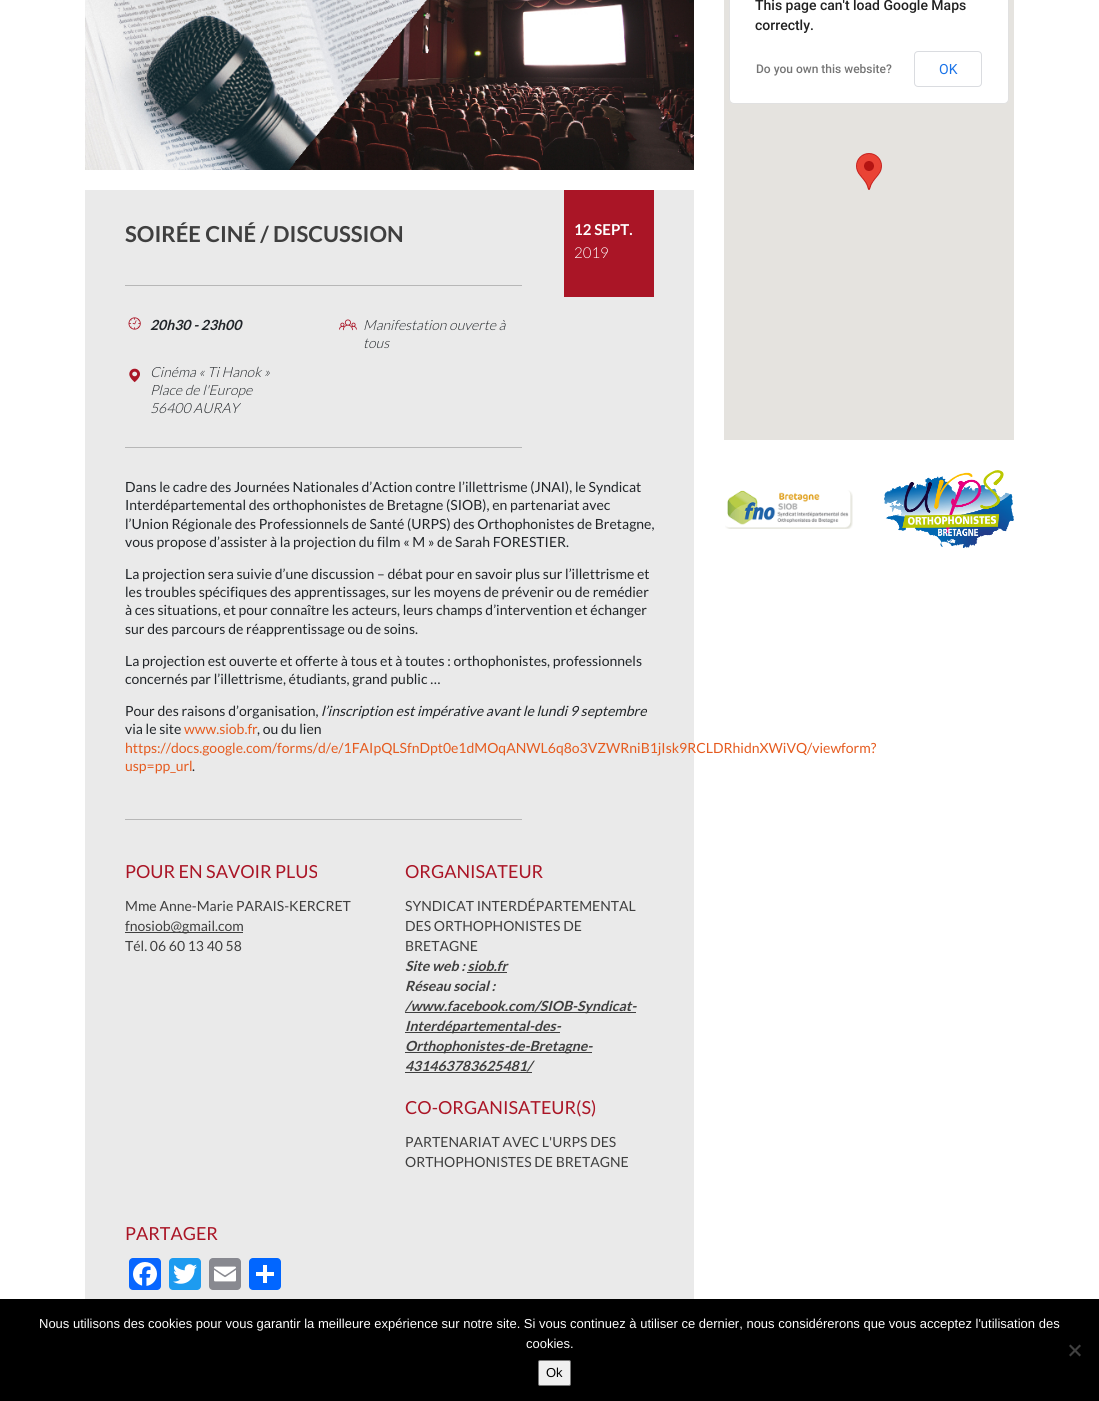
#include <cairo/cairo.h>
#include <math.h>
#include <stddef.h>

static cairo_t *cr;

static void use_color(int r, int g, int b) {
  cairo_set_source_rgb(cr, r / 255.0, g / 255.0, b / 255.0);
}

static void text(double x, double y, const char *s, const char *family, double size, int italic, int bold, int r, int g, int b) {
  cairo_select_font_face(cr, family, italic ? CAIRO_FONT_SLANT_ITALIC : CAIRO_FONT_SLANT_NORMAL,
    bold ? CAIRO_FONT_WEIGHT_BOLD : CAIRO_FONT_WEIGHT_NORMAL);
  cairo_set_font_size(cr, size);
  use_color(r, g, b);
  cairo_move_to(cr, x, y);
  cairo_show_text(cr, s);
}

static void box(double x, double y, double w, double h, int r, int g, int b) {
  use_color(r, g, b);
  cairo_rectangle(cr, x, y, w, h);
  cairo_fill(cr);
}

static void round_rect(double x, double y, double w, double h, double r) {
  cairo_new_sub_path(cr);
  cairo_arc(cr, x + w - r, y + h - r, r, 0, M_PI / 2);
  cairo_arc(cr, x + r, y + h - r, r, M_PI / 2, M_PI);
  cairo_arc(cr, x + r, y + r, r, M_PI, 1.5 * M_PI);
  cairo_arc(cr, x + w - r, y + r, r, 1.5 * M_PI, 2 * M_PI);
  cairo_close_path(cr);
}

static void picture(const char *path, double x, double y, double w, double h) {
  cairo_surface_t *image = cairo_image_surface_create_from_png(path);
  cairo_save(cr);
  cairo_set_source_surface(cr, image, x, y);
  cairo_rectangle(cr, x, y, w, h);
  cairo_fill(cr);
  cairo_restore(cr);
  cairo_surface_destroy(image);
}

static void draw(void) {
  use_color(255, 255, 255);
  cairo_paint(cr);
  box(724, 0, 290, 440, 229, 227, 223);
  picture("img_01.png", 856, 153, 26, 37);
  use_color(255, 255, 255);
  round_rect(729, -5, 280, 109, 5);
  cairo_fill(cr);
  round_rect(729.5, -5.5, 279, 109, 4.5);
  cairo_set_source_rgba(cr, 0, 0, 0, 0.12);
  cairo_set_line_width(cr, 1);
  cairo_stroke(cr);
  round_rect(914.5, 51.5, 67, 35, 3.5);
  use_color(218, 220, 224);
  cairo_stroke(cr);
  picture("img_02.png", 725, 490, 128, 39);
  picture("img_03.png", 884, 470, 130, 78);
  box(85, 190, 609, 1109, 234, 234, 234);
  picture("img_04.png", 85, 0, 609, 170);
  box(564, 190, 90, 107, 170, 21, 38);
  box(125, 285, 397, 1, 183, 183, 183);
  box(125, 447, 397, 1, 183, 183, 183);
  picture("img_05.png", 128, 317, 13, 13);
  picture("img_06.png", 339, 319, 18, 12);
  picture("img_07.png", 129, 368, 11, 15);
  box(125, 819, 397, 1, 183, 183, 183);
  box(125, 932, 118, 1, 63, 63, 63);
  box(467, 972, 40, 1, 63, 63, 63);
  box(405, 1012, 231, 1, 63, 63, 63);
  box(405, 1032, 155, 1, 63, 63, 63);
  box(405, 1052, 187, 1, 63, 63, 63);
  box(405, 1072, 127, 1, 63, 63, 63);
  use_color(8, 102, 255);
  round_rect(129, 1258, 32, 32, 4);
  cairo_fill(cr);
  picture("img_08.png", 133, 1262, 24, 24);
  use_color(29, 155, 240);
  round_rect(169, 1258, 32, 32, 4);
  cairo_fill(cr);
  picture("img_09.png", 173, 1264, 24, 20);
  use_color(136, 137, 144);
  round_rect(209, 1258, 32, 32, 4);
  cairo_fill(cr);
  picture("img_10.png", 214, 1266, 22, 16);
  use_color(1, 102, 255);
  round_rect(249, 1258, 32, 32, 4);
  cairo_fill(cr);
  box(263, 1265, 4, 18, 255, 255, 255);
  box(256, 1272, 18, 4, 255, 255, 255);
  box(0, 1299, 1099, 102, 0, 0, 0);
  use_color(64, 64, 64);
  cairo_new_path(cr);
  cairo_move_to(cr, 1079.5, 1344.5);
  cairo_line_to(cr, 1081, 1346);
  cairo_line_to(cr, 1070.5, 1356.5);
  cairo_line_to(cr, 1069, 1355);
  cairo_close_path(cr);
  cairo_fill(cr);
  cairo_new_path(cr);
  cairo_move_to(cr, 1069, 1346);
  cairo_line_to(cr, 1070.5, 1344.5);
  cairo_line_to(cr, 1081, 1355);
  cairo_line_to(cr, 1079.5, 1356.5);
  cairo_close_path(cr);
  cairo_fill(cr);
  use_color(239, 239, 239);
  round_rect(538.5, 1360.5, 32, 25, 1.5);
  cairo_fill_preserve(cr);
  use_color(118, 118, 118);
  cairo_stroke(cr);
  text(755, 10, "This page can't load Google Maps", "Roboto Medium", 14, 0, 0, 33, 33, 33);
  text(755, 30, "correctly.", "Roboto Medium", 14, 0, 0, 33, 33, 33);
  text(756, 73, "Do you own this website?", "Roboto Medium", 12, 0, 0, 117, 117, 117);
  text(939, 74, "OK", "Roboto", 14, 0, 0, 26, 115, 232);
  text(125, 242, "SOIRÉE CINÉ / DISCUSSION", "Lato", 22, 0, 1, 63, 63, 63);
  text(574, 235, "12 SEPT.", "Lato", 15, 0, 1, 255, 255, 255);
  text(574, 258, "2019", "Lato Light", 15, 0, 0, 255, 255, 255);
  text(150, 330, "20h30 - 23h00", "Lato", 14, 1, 1, 33, 37, 41);
  text(363, 330, "Manifestation ouverte à", "Lato Light", 14, 1, 0, 33, 37, 41);
  text(363, 348, "tous", "Lato Light", 14, 1, 0, 33, 37, 41);
  text(150, 377, "Cinéma « Ti Hanok »", "Lato Light", 14, 1, 0, 33, 37, 41);
  text(150, 395, "Place de l'Europe", "Lato Light", 14, 1, 0, 33, 37, 41);
  text(150, 413, "56400 AURAY", "Lato Light", 14, 1, 0, 33, 37, 41);
  text(125, 492, "Dans le cadre des Journées Nationales d’Action contre l’illettrisme (JNAI), le Syndicat", "Lato", 14, 0, 0, 33, 37, 41);
  text(125, 510, "Interdépartemental des orthophonistes de Bretagne (SIOB), en partenariat avec", "Lato", 14, 0, 0, 33, 37, 41);
  text(125, 529, "l’Union Régionale des Professionnels de Santé (URPS) des Orthophonistes de Bretagne,", "Lato", 14, 0, 0, 33, 37, 41);
  text(125, 547, "vous propose d’assister à la projection du film « M » de Sarah FORESTIER.", "Lato", 14, 0, 0, 33, 37, 41);
  text(125, 579, "La projection sera suivie d’une discussion – débat pour en savoir plus sur l’illettrisme et", "Lato", 14, 0, 0, 33, 37, 41);
  text(125, 597, "les troubles spécifiques des apprentissages, sur les moyens de prévenir ou de remédier", "Lato", 14, 0, 0, 33, 37, 41);
  text(125, 615, "à ces situations, et pour connaître les acteurs, leurs champs d’intervention et échanger", "Lato", 14, 0, 0, 33, 37, 41);
  text(125, 634, "sur des parcours de réapprentissage ou de soins.", "Lato", 14, 0, 0, 33, 37, 41);
  text(125, 666, "La projection est ouverte et offerte à tous et à toutes : orthophonistes, professionnels", "Lato", 14, 0, 0, 33, 37, 41);
  text(125, 684, "concernés par l’illettrisme, étudiants, grand public …", "Lato", 14, 0, 0, 33, 37, 41);
  text(125, 716, "Pour des raisons d’organisation,", "Lato", 14, 0, 0, 33, 37, 41);
  text(321, 716, "l’inscription est impérative avant le lundi 9 septembre", "Lato", 14, 1, 0, 33, 37, 41);
  text(125, 734, "via le site", "Lato", 14, 0, 0, 33, 37, 41);
  text(184, 734, "www.siob.fr", "Lato", 14, 0, 0, 229, 91, 31);
  text(257, 734, ", ou du lien", "Lato", 14, 0, 0, 33, 37, 41);
  text(125, 753, "https://docs.google.com/forms/d/e/1FAIpQLSfnDpt0e1dMOqANWL6q8o3VZWRniB1jIsk9RCLDRhidnXWiVQ/viewform?", "Lato", 14, 0, 0, 229, 91, 31);
  text(125, 771, "usp=pp_url", "Lato", 14, 0, 0, 229, 91, 31);
  text(192, 771, ".", "Lato", 14, 0, 0, 33, 37, 41);
  text(125, 878, "POUR EN SAVOIR PLUS", "Lato", 18, 0, 0, 170, 21, 38);
  text(125, 911, "Mme Anne-Marie PARAIS-KERCRET", "Lato", 14, 0, 0, 63, 63, 63);
  text(125, 931, "fnosiob@gmail.com", "Lato", 14, 0, 0, 63, 63, 63);
  text(125, 951, "Tél. 06 60 13 40 58", "Lato", 14, 0, 0, 63, 63, 63);
  text(405, 878, "ORGANISATEUR", "Lato", 18, 0, 0, 170, 21, 38);
  text(405, 911, "SYNDICAT INTERDÉPARTEMENTAL", "Lato", 14, 0, 0, 63, 63, 63);
  text(405, 931, "DES ORTHOPHONISTES DE", "Lato", 14, 0, 0, 63, 63, 63);
  text(405, 951, "BRETAGNE", "Lato", 14, 0, 0, 63, 63, 63);
  text(405, 971, "Site web : siob.fr", "Lato", 14, 1, 1, 63, 63, 63);
  text(405, 991, "Réseau social :", "Lato", 14, 1, 1, 63, 63, 63);
  text(405, 1011, "/www.facebook.com/SIOB-Syndicat-", "Lato", 14, 1, 1, 63, 63, 63);
  text(405, 1031, "Interdépartemental-des-", "Lato", 14, 1, 1, 63, 63, 63);
  text(405, 1051, "Orthophonistes-de-Bretagne-", "Lato", 14, 1, 1, 63, 63, 63);
  text(405, 1071, "431463783625481/", "Lato", 14, 1, 1, 63, 63, 63);
  text(405, 1114, "CO-ORGANISATEUR(S)", "Lato", 18, 0, 0, 170, 21, 38);
  text(405, 1147, "PARTENARIAT AVEC L'URPS DES", "Lato", 14, 0, 0, 63, 63, 63);
  text(405, 1167, "ORTHOPHONISTES DE BRETAGNE", "Lato", 14, 0, 0, 63, 63, 63);
  text(125, 1240, "PARTAGER", "Lato", 18, 0, 0, 170, 21, 38);
  text(39, 1328, "Nous utilisons des cookies pour vous garantir la meilleure expérience sur notre site. Si vous continuez à utiliser ce dernier, nous considérerons que vous acceptez l'utilisation des", "Liberation Sans", 13, 0, 0, 255, 255, 255);
  text(526, 1348, "cookies.", "Liberation Sans", 13, 0, 0, 255, 255, 255);
  text(546, 1377, "Ok", "Liberation Sans", 13, 0, 0, 0, 0, 0);
}

int main(void) {
  cairo_surface_t *surface = cairo_image_surface_create(CAIRO_FORMAT_RGB24, 1099, 1401);
  cr = cairo_create(surface);
  cairo_font_options_t *options = cairo_font_options_create();
  cairo_font_options_set_hint_metrics(options, CAIRO_HINT_METRICS_OFF);
  cairo_font_options_set_hint_style(options, CAIRO_HINT_STYLE_NONE);
  cairo_set_font_options(cr, options);
  cairo_set_miter_limit(cr, 4);
  draw();
  cairo_surface_write_to_png(surface, "out.png");
  cairo_font_options_destroy(options);
  cairo_destroy(cr);
  cairo_surface_destroy(surface);
  return 0;
}
